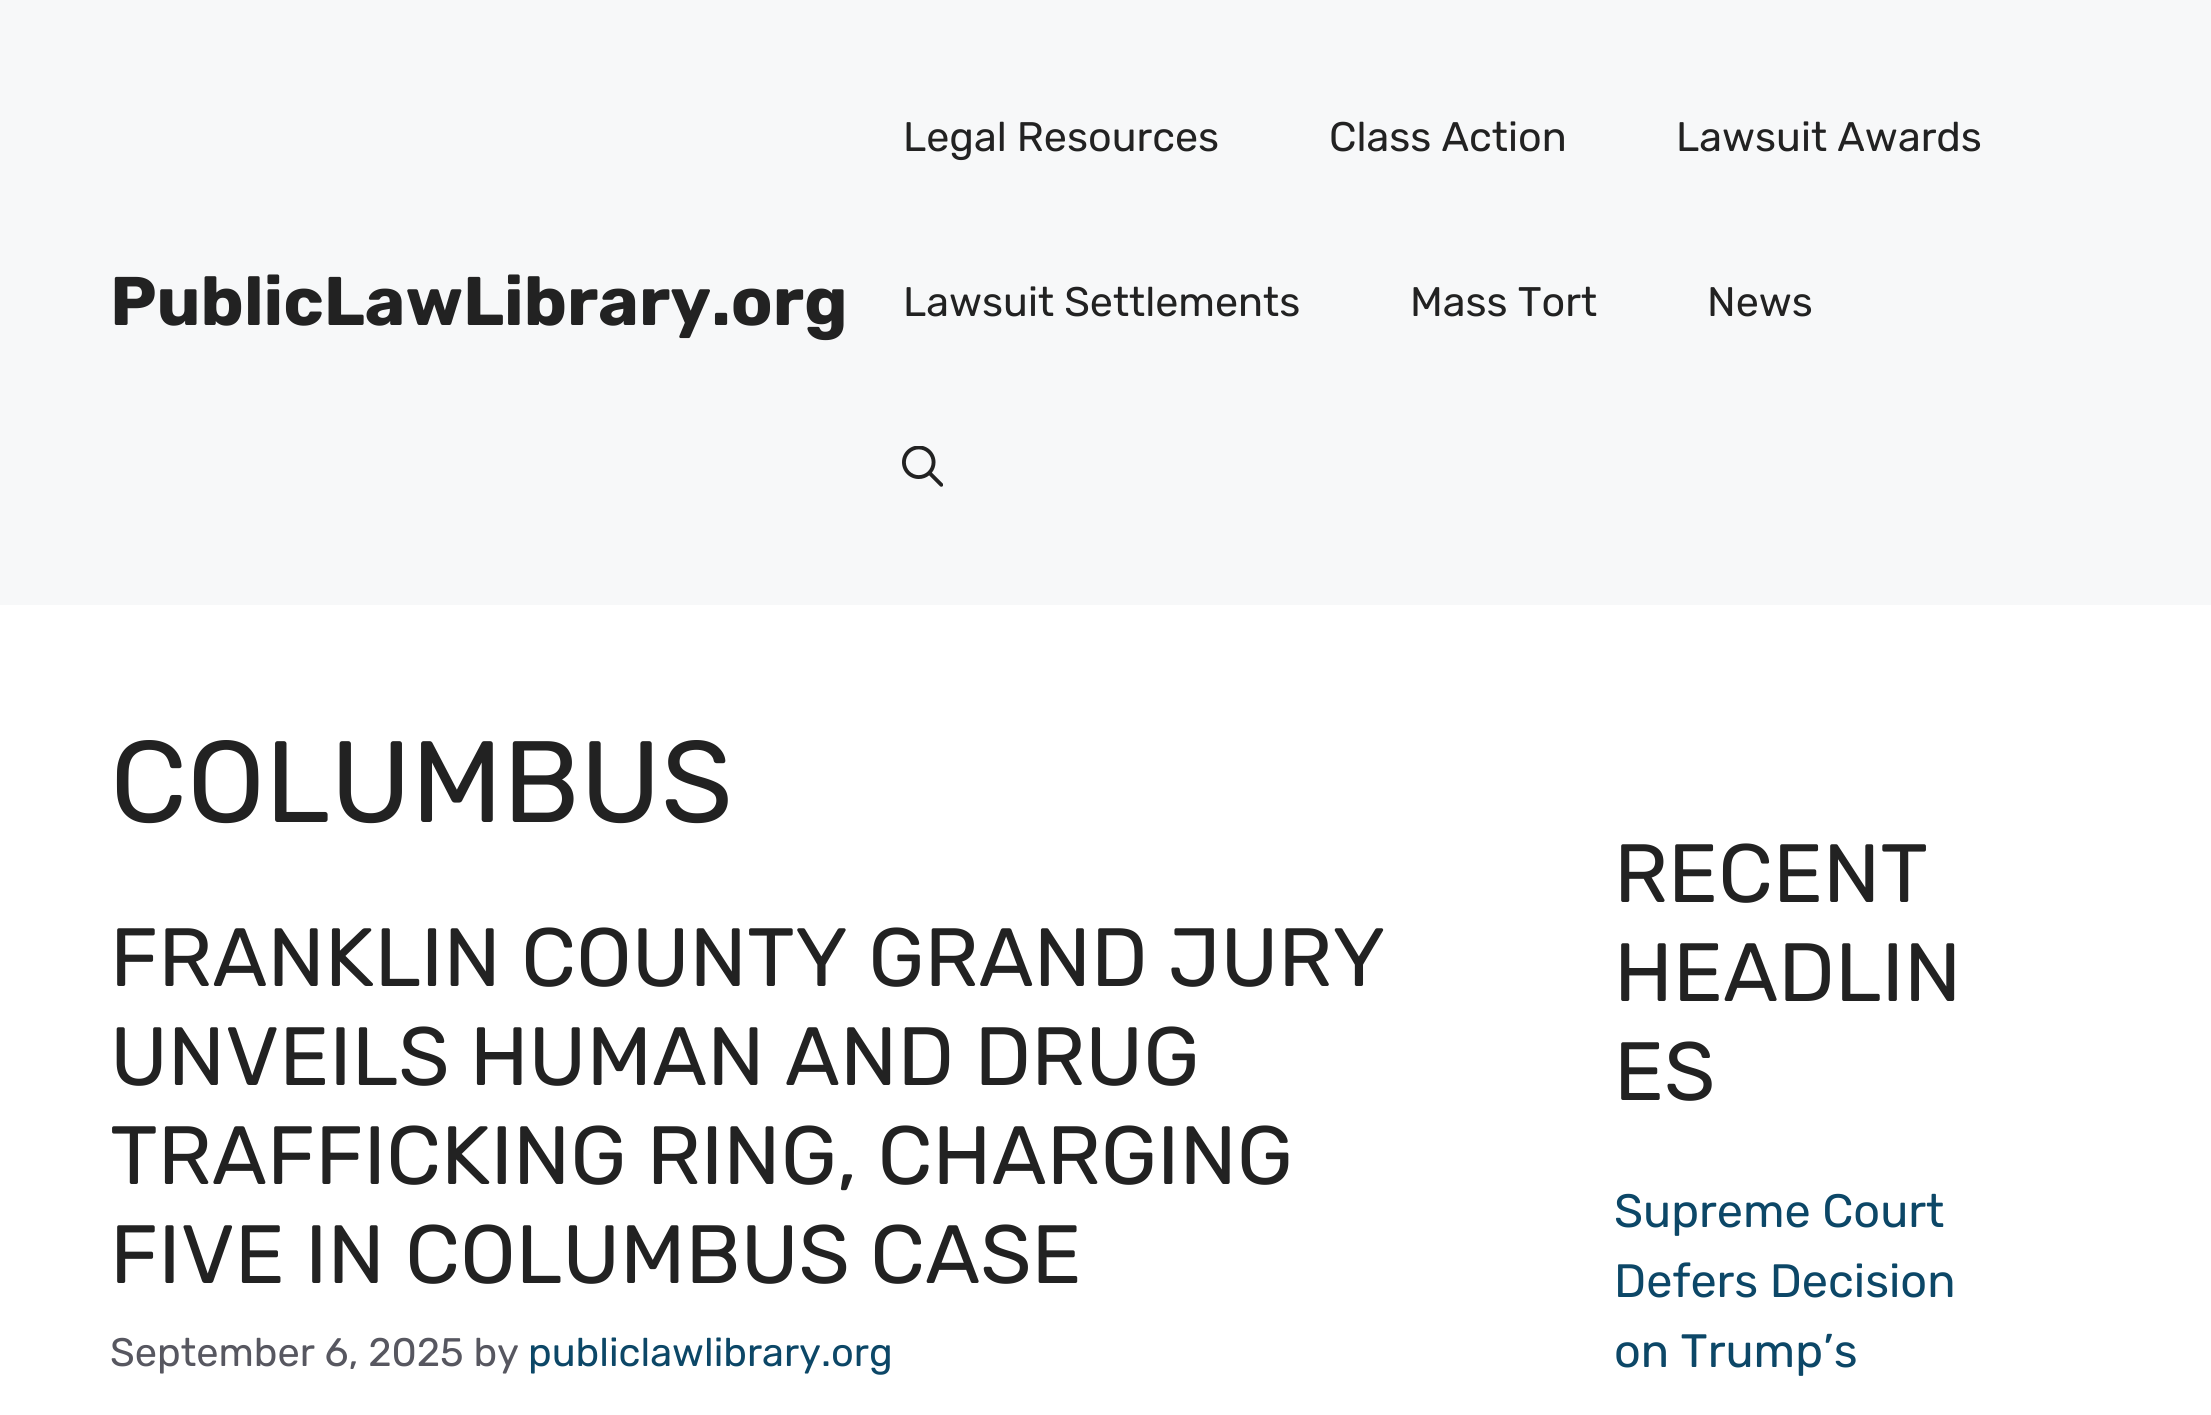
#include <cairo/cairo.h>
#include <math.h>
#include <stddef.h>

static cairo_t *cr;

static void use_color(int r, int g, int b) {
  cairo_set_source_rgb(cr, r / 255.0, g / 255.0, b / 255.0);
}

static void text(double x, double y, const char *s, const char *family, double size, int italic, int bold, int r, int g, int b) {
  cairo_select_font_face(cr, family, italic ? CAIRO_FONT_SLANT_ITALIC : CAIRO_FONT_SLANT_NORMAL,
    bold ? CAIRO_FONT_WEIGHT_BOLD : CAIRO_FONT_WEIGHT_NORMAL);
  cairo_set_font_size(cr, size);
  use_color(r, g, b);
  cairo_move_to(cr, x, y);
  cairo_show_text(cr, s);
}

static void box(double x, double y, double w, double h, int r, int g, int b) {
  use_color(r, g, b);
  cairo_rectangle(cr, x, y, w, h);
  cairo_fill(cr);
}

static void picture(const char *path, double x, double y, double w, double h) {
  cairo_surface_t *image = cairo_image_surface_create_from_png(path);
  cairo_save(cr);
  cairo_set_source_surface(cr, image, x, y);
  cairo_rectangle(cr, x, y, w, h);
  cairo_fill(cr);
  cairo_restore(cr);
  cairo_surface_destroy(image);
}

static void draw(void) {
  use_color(255, 255, 255);
  cairo_paint(cr);
  box(0, 0, 2211, 605, 247, 248, 249);
  picture("img_01.png", 902, 446, 41, 41);
  text(110, 325, "PublicLawLibrary.org", "Rubik", 68.75, 0, 1, 34, 34, 34);
  text(903, 151, "Legal Resources", "Rubik", 41.25, 0, 0, 34, 34, 34);
  text(1329, 151, "Class Action", "Rubik", 41.25, 0, 0, 34, 34, 34);
  text(1676, 151, "Lawsuit Awards", "Rubik", 41.25, 0, 0, 34, 34, 34);
  text(903, 316, "Lawsuit Settlements", "Rubik", 41.25, 0, 0, 34, 34, 34);
  text(1410, 316, "Mass Tort", "Rubik", 41.25, 0, 0, 34, 34, 34);
  text(1707, 316, "News", "Rubik", 41.25, 0, 0, 34, 34, 34);
  text(110, 822, "COLUMBUS", "Rubik", 115.5, 0, 0, 34, 34, 34);
  text(110, 986, "FRANKLIN COUNTY GRAND JURY", "Rubik", 82.5, 0, 0, 34, 34, 34);
  text(110, 1085, "UNVEILS HUMAN AND DRUG", "Rubik", 82.5, 0, 0, 34, 34, 34);
  text(110, 1184, "TRAFFICKING RING, CHARGING", "Rubik", 82.5, 0, 0, 34, 34, 34);
  text(110, 1283, "FIVE IN COLUMBUS CASE", "Rubik", 82.5, 0, 0, 34, 34, 34);
  text(110, 1366, "September 6, 2025 by", "Rubik", 39.75, 0, 0, 87, 87, 96);
  text(528, 1366, "publiclawlibrary.org", "Rubik", 39.75, 0, 0, 12, 71, 103);
  text(1614, 902, "RECENT", "Rubik", 82.5, 0, 0, 34, 34, 34);
  text(1614, 1001, "HEADLIN", "Rubik", 82.5, 0, 0, 34, 34, 34);
  text(1614, 1100, "ES", "Rubik", 82.5, 0, 0, 34, 34, 34);
  text(1614, 1227, "Supreme Court", "Rubik", 46.75, 0, 0, 12, 71, 103);
  text(1614, 1297, "Defers Decision", "Rubik", 46.75, 0, 0, 12, 71, 103);
  text(1614, 1367, "on Trump’s", "Rubik", 46.75, 0, 0, 12, 71, 103);
}

int main(void) {
  cairo_surface_t *surface = cairo_image_surface_create(CAIRO_FORMAT_RGB24, 2211, 1415);
  cr = cairo_create(surface);
  cairo_font_options_t *options = cairo_font_options_create();
  cairo_font_options_set_hint_metrics(options, CAIRO_HINT_METRICS_OFF);
  cairo_font_options_set_hint_style(options, CAIRO_HINT_STYLE_NONE);
  cairo_set_font_options(cr, options);
  cairo_set_miter_limit(cr, 4);
  draw();
  cairo_surface_write_to_png(surface, "out.png");
  cairo_font_options_destroy(options);
  cairo_destroy(cr);
  cairo_surface_destroy(surface);
  return 0;
}
